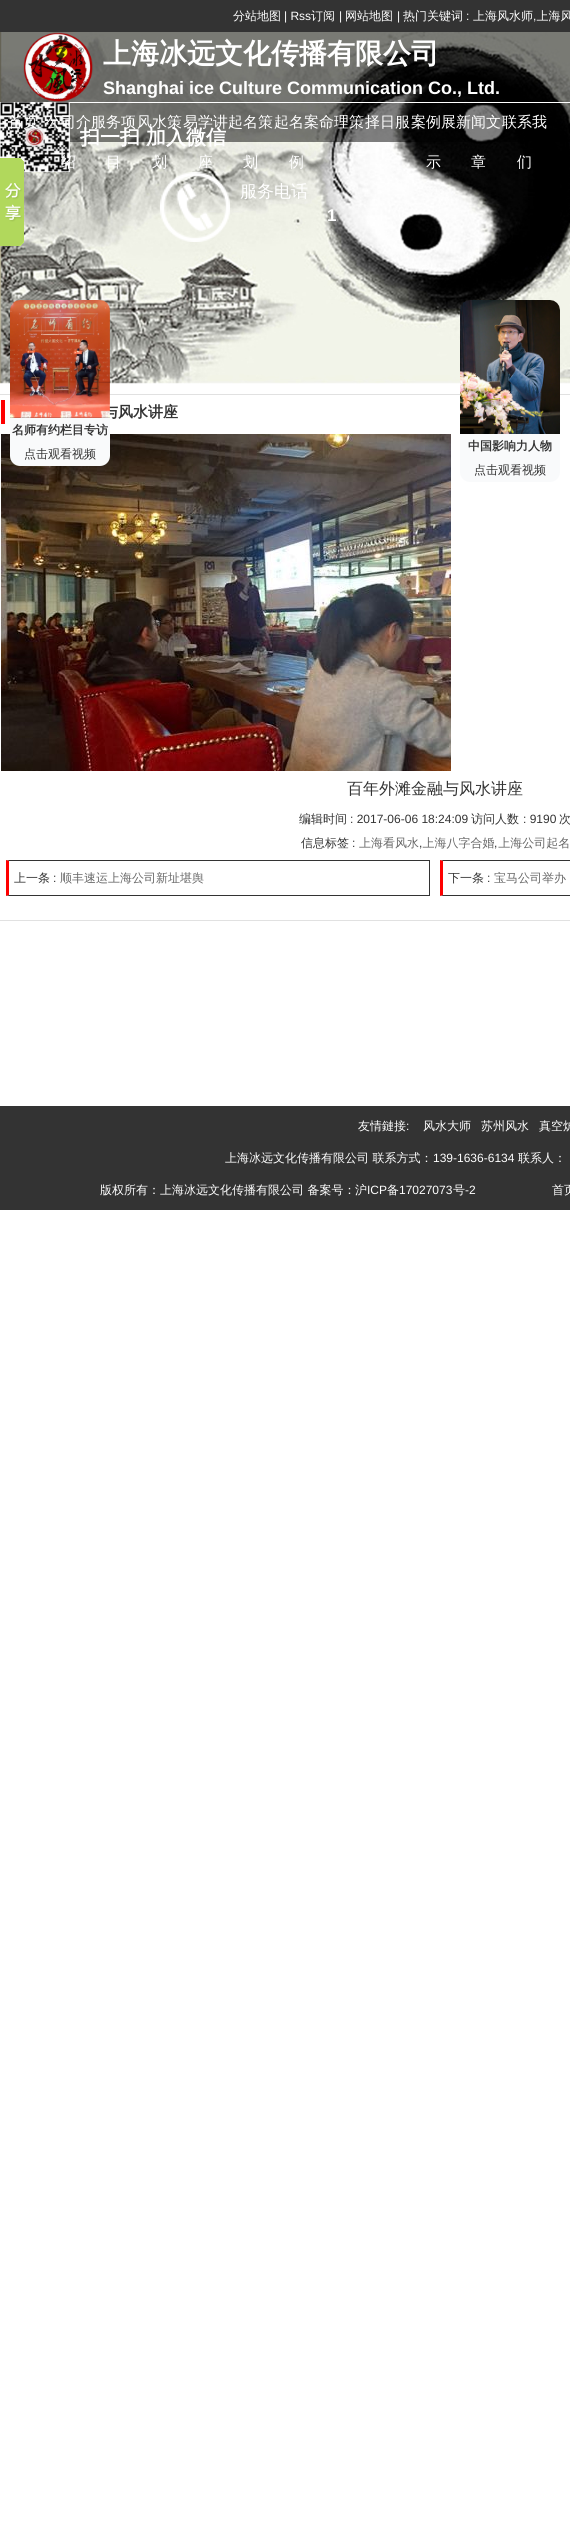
#include <cairo/cairo.h>
#include <math.h>
#include <stddef.h>

static cairo_t *cr;

static void use_color(int r, int g, int b) {
  cairo_set_source_rgb(cr, r / 255.0, g / 255.0, b / 255.0);
}

static void text(double x, double y, const char *s, const char *family, double size, int italic, int bold, int r, int g, int b) {
  cairo_select_font_face(cr, family, italic ? CAIRO_FONT_SLANT_ITALIC : CAIRO_FONT_SLANT_NORMAL,
    bold ? CAIRO_FONT_WEIGHT_BOLD : CAIRO_FONT_WEIGHT_NORMAL);
  cairo_set_font_size(cr, size);
  use_color(r, g, b);
  cairo_move_to(cr, x, y);
  cairo_show_text(cr, s);
}

static void box(double x, double y, double w, double h, int r, int g, int b) {
  use_color(r, g, b);
  cairo_rectangle(cr, x, y, w, h);
  cairo_fill(cr);
}

static void picture(const char *path, double x, double y, double w, double h) {
  cairo_surface_t *image = cairo_image_surface_create_from_png(path);
  cairo_save(cr);
  cairo_set_source_surface(cr, image, x, y);
  cairo_rectangle(cr, x, y, w, h);
  cairo_fill(cr);
  cairo_restore(cr);
  cairo_surface_destroy(image);
}

static void draw(void) {
  use_color(255, 255, 255);
  cairo_paint(cr);
  box(0, 0, 570, 32, 51, 51, 51);
  picture("img_01.png", 0, 32, 570, 352);
  cairo_set_source_rgba(cr, 0, 0, 0, 0.5);
  cairo_rectangle(cr, 0, 32, 570, 110);
  cairo_fill(cr);
  box(69, 102, 501, 1, 255, 255, 255);
  picture("img_02.png", 23, 32, 70, 70);
  picture("img_03.png", 0, 102, 70, 70);
  picture("img_04.png", 160, 172, 70, 70);
  picture("img_05.png", 0, 158, 24, 88);
  cairo_rectangle(cr, -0.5, 394.5, 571, 526);
  use_color(225, 225, 225);
  cairo_set_line_width(cr, 1);
  cairo_stroke(cr);
  box(1, 400, 4, 24, 255, 0, 0);
  picture("img_06.png", 1, 434, 450, 337);
  use_color(51, 51, 51);
  cairo_new_path(cr);
  cairo_move_to(cr, 6, 860);
  cairo_line_to(cr, 430, 860);
  cairo_line_to(cr, 429, 861);
  cairo_line_to(cr, 9, 861);
  cairo_close_path(cr);
  cairo_fill(cr);
  box(429, 860, 1, 36, 51, 51, 51);
  cairo_new_path(cr);
  cairo_move_to(cr, 430, 896);
  cairo_line_to(cr, 6, 896);
  cairo_line_to(cr, 9, 895);
  cairo_line_to(cr, 429, 895);
  cairo_close_path(cr);
  cairo_fill(cr);
  use_color(255, 0, 0);
  cairo_new_path(cr);
  cairo_move_to(cr, 6, 896);
  cairo_line_to(cr, 6, 860);
  cairo_line_to(cr, 9, 861);
  cairo_line_to(cr, 9, 895);
  cairo_close_path(cr);
  cairo_fill(cr);
  use_color(51, 51, 51);
  cairo_new_path(cr);
  cairo_move_to(cr, 440, 860);
  cairo_line_to(cr, 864, 860);
  cairo_line_to(cr, 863, 861);
  cairo_line_to(cr, 443, 861);
  cairo_close_path(cr);
  cairo_fill(cr);
  cairo_new_path(cr);
  cairo_move_to(cr, 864, 896);
  cairo_line_to(cr, 440, 896);
  cairo_line_to(cr, 443, 895);
  cairo_line_to(cr, 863, 895);
  cairo_close_path(cr);
  cairo_fill(cr);
  use_color(255, 0, 0);
  cairo_new_path(cr);
  cairo_move_to(cr, 440, 896);
  cairo_line_to(cr, 440, 860);
  cairo_line_to(cr, 443, 861);
  cairo_line_to(cr, 443, 895);
  cairo_close_path(cr);
  cairo_fill(cr);
  use_color(249, 250, 251);
  cairo_new_path(cr);
  cairo_move_to(cr, 10, 442);
  cairo_line_to(cr, 110, 442);
  cairo_line_to(cr, 110, 456);
  cairo_curve_to(cr, 110, 461.5, 105.5, 466, 100, 466);
  cairo_line_to(cr, 20, 466);
  cairo_curve_to(cr, 14.5, 466, 10, 461.5, 10, 456);
  cairo_close_path(cr);
  cairo_fill(cr);
  picture("img_08.png", 460, 300, 100, 134);
  box(460, 434, 100, 24, 249, 250, 251);
  cairo_new_path(cr);
  cairo_move_to(cr, 460, 458);
  cairo_line_to(cr, 560, 458);
  cairo_line_to(cr, 560, 472);
  cairo_curve_to(cr, 560, 477.5, 555.5, 482, 550, 482);
  cairo_line_to(cr, 470, 482);
  cairo_curve_to(cr, 464.5, 482, 460, 477.5, 460, 472);
  cairo_close_path(cr);
  cairo_fill(cr);
  box(0, 1106, 570, 104, 51, 51, 51);
  text(233, 20, "分站地图", "WenQuanYi Zen Hei Medium", 12, 0, 0, 255, 255, 255);
  text(284, 20, "| Rss", "Liberation Sans", 12, 0, 0, 255, 255, 255);
  text(311, 20, "订阅", "WenQuanYi Zen Hei Medium", 12, 0, 0, 255, 255, 255);
  text(339, 20, "|", "Liberation Sans", 12, 0, 0, 255, 255, 255);
  text(345, 20, "网站地图", "WenQuanYi Zen Hei Medium", 12, 0, 0, 255, 255, 255);
  text(397, 20, "|", "Liberation Sans", 12, 0, 0, 255, 255, 255);
  text(403, 20, "热门关键词", "WenQuanYi Zen Hei Medium", 12, 0, 0, 255, 255, 255);
  text(466, 20, ":", "Liberation Sans", 12, 0, 0, 255, 255, 255);
  text(473, 20, "上海风水师 上海风", "WenQuanYi Zen Hei Medium", 12, 0, 0, 255, 255, 255);
  text(533, 20, ",", "Liberation Sans", 12, 0, 0, 255, 255, 255);
  text(103, 63, "上海冰远文化传播有限公司", "WenQuanYi Zen Hei", 28, 0, 1, 255, 255, 255);
  text(103, 94, "Shanghai ice Culture Communication Co., Ltd.", "Liberation Sans", 18, 0, 1, 255, 255, 255);
  text(80, 144, "扫一扫 加入微信", "WenQuanYi Zen Hei", 20, 0, 1, 255, 255, 255);
  text(240, 197, "服务电话", "WenQuanYi Zen Hei Medium", 17, 0, 0, 255, 255, 255);
  text(327, 221, "1", "Liberation Sans", 17, 0, 1, 255, 255, 255);
  text(8, 127, "首页", "WenQuanYi Zen Hei Medium", 15, 0, 0, 255, 255, 255);
  text(46, 127, "公司介", "WenQuanYi Zen Hei Medium", 15, 0, 0, 255, 255, 255);
  text(61, 167, "绍", "WenQuanYi Zen Hei Medium", 15, 0, 0, 255, 255, 255);
  text(91, 127, "服务项", "WenQuanYi Zen Hei Medium", 15, 0, 0, 255, 255, 255);
  text(106, 167, "目", "WenQuanYi Zen Hei Medium", 15, 0, 0, 255, 255, 255);
  text(137, 127, "风水策", "WenQuanYi Zen Hei Medium", 15, 0, 0, 255, 255, 255);
  text(152, 167, "划", "WenQuanYi Zen Hei Medium", 15, 0, 0, 255, 255, 255);
  text(183, 127, "易学讲", "WenQuanYi Zen Hei Medium", 15, 0, 0, 255, 255, 255);
  text(198, 167, "座", "WenQuanYi Zen Hei Medium", 15, 0, 0, 255, 255, 255);
  text(228, 127, "起名策", "WenQuanYi Zen Hei Medium", 15, 0, 0, 255, 255, 255);
  text(243, 167, "划", "WenQuanYi Zen Hei Medium", 15, 0, 0, 255, 255, 255);
  text(274, 127, "起名案", "WenQuanYi Zen Hei Medium", 15, 0, 0, 255, 255, 255);
  text(289, 167, "例", "WenQuanYi Zen Hei Medium", 15, 0, 0, 255, 255, 255);
  text(319, 127, "命理策", "WenQuanYi Zen Hei Medium", 15, 0, 0, 255, 255, 255);
  text(365, 127, "择日服", "WenQuanYi Zen Hei Medium", 15, 0, 0, 255, 255, 255);
  text(411, 127, "案例展", "WenQuanYi Zen Hei Medium", 15, 0, 0, 255, 255, 255);
  text(426, 167, "示", "WenQuanYi Zen Hei Medium", 15, 0, 0, 255, 255, 255);
  text(456, 127, "新闻文", "WenQuanYi Zen Hei Medium", 15, 0, 0, 255, 255, 255);
  text(471, 167, "章", "WenQuanYi Zen Hei Medium", 15, 0, 0, 255, 255, 255);
  text(502, 127, "联系我", "WenQuanYi Zen Hei Medium", 15, 0, 0, 255, 255, 255);
  text(517, 167, "们", "WenQuanYi Zen Hei Medium", 15, 0, 0, 255, 255, 255);
  text(103, 417, "与风水讲座", "WenQuanYi Zen Hei", 15, 0, 1, 51, 51, 51);
  text(347, 794, "百年外滩金融与风水讲座", "WenQuanYi Zen Hei Medium", 16, 0, 0, 51, 51, 51);
  text(299, 823, "编辑时间", "WenQuanYi Zen Hei Medium", 12, 0, 0, 51, 51, 51);
  text(350, 823, ": 2017-06-06 18:24:09", "Liberation Sans", 12, 0, 0, 51, 51, 51);
  text(471, 823, "访问人数", "WenQuanYi Zen Hei Medium", 12, 0, 0, 51, 51, 51);
  text(523, 823, ": 9190", "Liberation Sans", 12, 0, 0, 51, 51, 51);
  text(559, 823, "次", "WenQuanYi Zen Hei Medium", 12, 0, 0, 51, 51, 51);
  text(301, 847, "信息标签", "WenQuanYi Zen Hei Medium", 12, 0, 0, 51, 51, 51);
  text(352, 847, ":", "Liberation Sans", 12, 0, 0, 51, 51, 51);
  text(359, 847, "上海看风水 上海八字合婚 上海公司起名", "WenQuanYi Zen Hei Medium", 12, 0, 0, 102, 102, 102);
  text(419, 847, ",", "Liberation Sans", 12, 0, 0, 51, 51, 51);
  text(494, 847, ",", "Liberation Sans", 12, 0, 0, 51, 51, 51);
  text(14, 882, "上一条", "WenQuanYi Zen Hei Medium", 12, 0, 0, 51, 51, 51);
  text(53, 882, ":", "Liberation Sans", 12, 0, 0, 51, 51, 51);
  text(60, 882, "顺丰速运上海公司新址堪舆", "WenQuanYi Zen Hei Medium", 12, 0, 0, 102, 102, 102);
  text(448, 882, "下一条", "WenQuanYi Zen Hei Medium", 12, 0, 0, 51, 51, 51);
  text(487, 882, ":", "Liberation Sans", 12, 0, 0, 51, 51, 51);
  text(494, 882, "宝马公司举办", "WenQuanYi Zen Hei Medium", 12, 0, 0, 102, 102, 102);
  picture("img_07.png", 10, 300, 100, 118);
  box(10, 418, 100, 24, 249, 250, 251);
  text(12, 434, "名师有约栏目专访", "WenQuanYi Zen Hei", 12, 0, 1, 51, 51, 51);
  text(24, 458, "点击观看视频", "WenQuanYi Zen Hei Medium", 12, 0, 0, 51, 51, 51);
  text(468, 450, "中国影响力人物", "WenQuanYi Zen Hei", 12, 0, 1, 51, 51, 51);
  text(474, 474, "点击观看视频", "WenQuanYi Zen Hei Medium", 12, 0, 0, 51, 51, 51);
  text(358, 1130, "友情鏈接", "WenQuanYi Zen Hei Medium", 12, 0, 0, 255, 255, 255);
  text(406, 1130, ":", "Liberation Sans", 12, 0, 0, 255, 255, 255);
  text(423, 1130, "风水大师", "WenQuanYi Zen Hei Medium", 12, 0, 0, 255, 255, 255);
  text(481, 1130, "苏州风水", "WenQuanYi Zen Hei Medium", 12, 0, 0, 255, 255, 255);
  text(539, 1130, "真空炉", "WenQuanYi Zen Hei Medium", 12, 0, 0, 255, 255, 255);
  text(225, 1162, "上海冰远文化传播有限公司 联系方式：", "WenQuanYi Zen Hei Medium", 12, 0, 0, 255, 255, 255);
  text(433, 1162, "139-1636-6134", "Liberation Sans", 12, 0, 0, 255, 255, 255);
  text(518, 1162, "联系人：", "WenQuanYi Zen Hei Medium", 12, 0, 0, 255, 255, 255);
  text(100, 1194, "版权所有：上海冰远文化传播有限公司 备案号：", "WenQuanYi Zen Hei Medium", 12, 0, 0, 255, 255, 255);
  text(355, 1194, "沪", "WenQuanYi Zen Hei Medium", 12, 0, 0, 255, 255, 255);
  text(367, 1194, "ICP", "Liberation Sans", 12, 0, 0, 255, 255, 255);
  text(387, 1194, "备", "WenQuanYi Zen Hei Medium", 12, 0, 0, 255, 255, 255);
  text(399, 1194, "17027073", "Liberation Sans", 12, 0, 0, 255, 255, 255);
  text(453, 1194, "号", "WenQuanYi Zen Hei Medium", 12, 0, 0, 255, 255, 255);
  text(465, 1194, "-2", "Liberation Sans", 12, 0, 0, 255, 255, 255);
  text(552, 1194, "首页", "WenQuanYi Zen Hei Medium", 12, 0, 0, 255, 255, 255);
}

int main(void) {
  cairo_surface_t *surface = cairo_image_surface_create(CAIRO_FORMAT_RGB24, 570, 2546);
  cr = cairo_create(surface);
  cairo_font_options_t *options = cairo_font_options_create();
  cairo_font_options_set_hint_metrics(options, CAIRO_HINT_METRICS_OFF);
  cairo_font_options_set_hint_style(options, CAIRO_HINT_STYLE_NONE);
  cairo_set_font_options(cr, options);
  cairo_set_miter_limit(cr, 4);
  draw();
  cairo_surface_write_to_png(surface, "out.png");
  cairo_font_options_destroy(options);
  cairo_destroy(cr);
  cairo_surface_destroy(surface);
  return 0;
}
